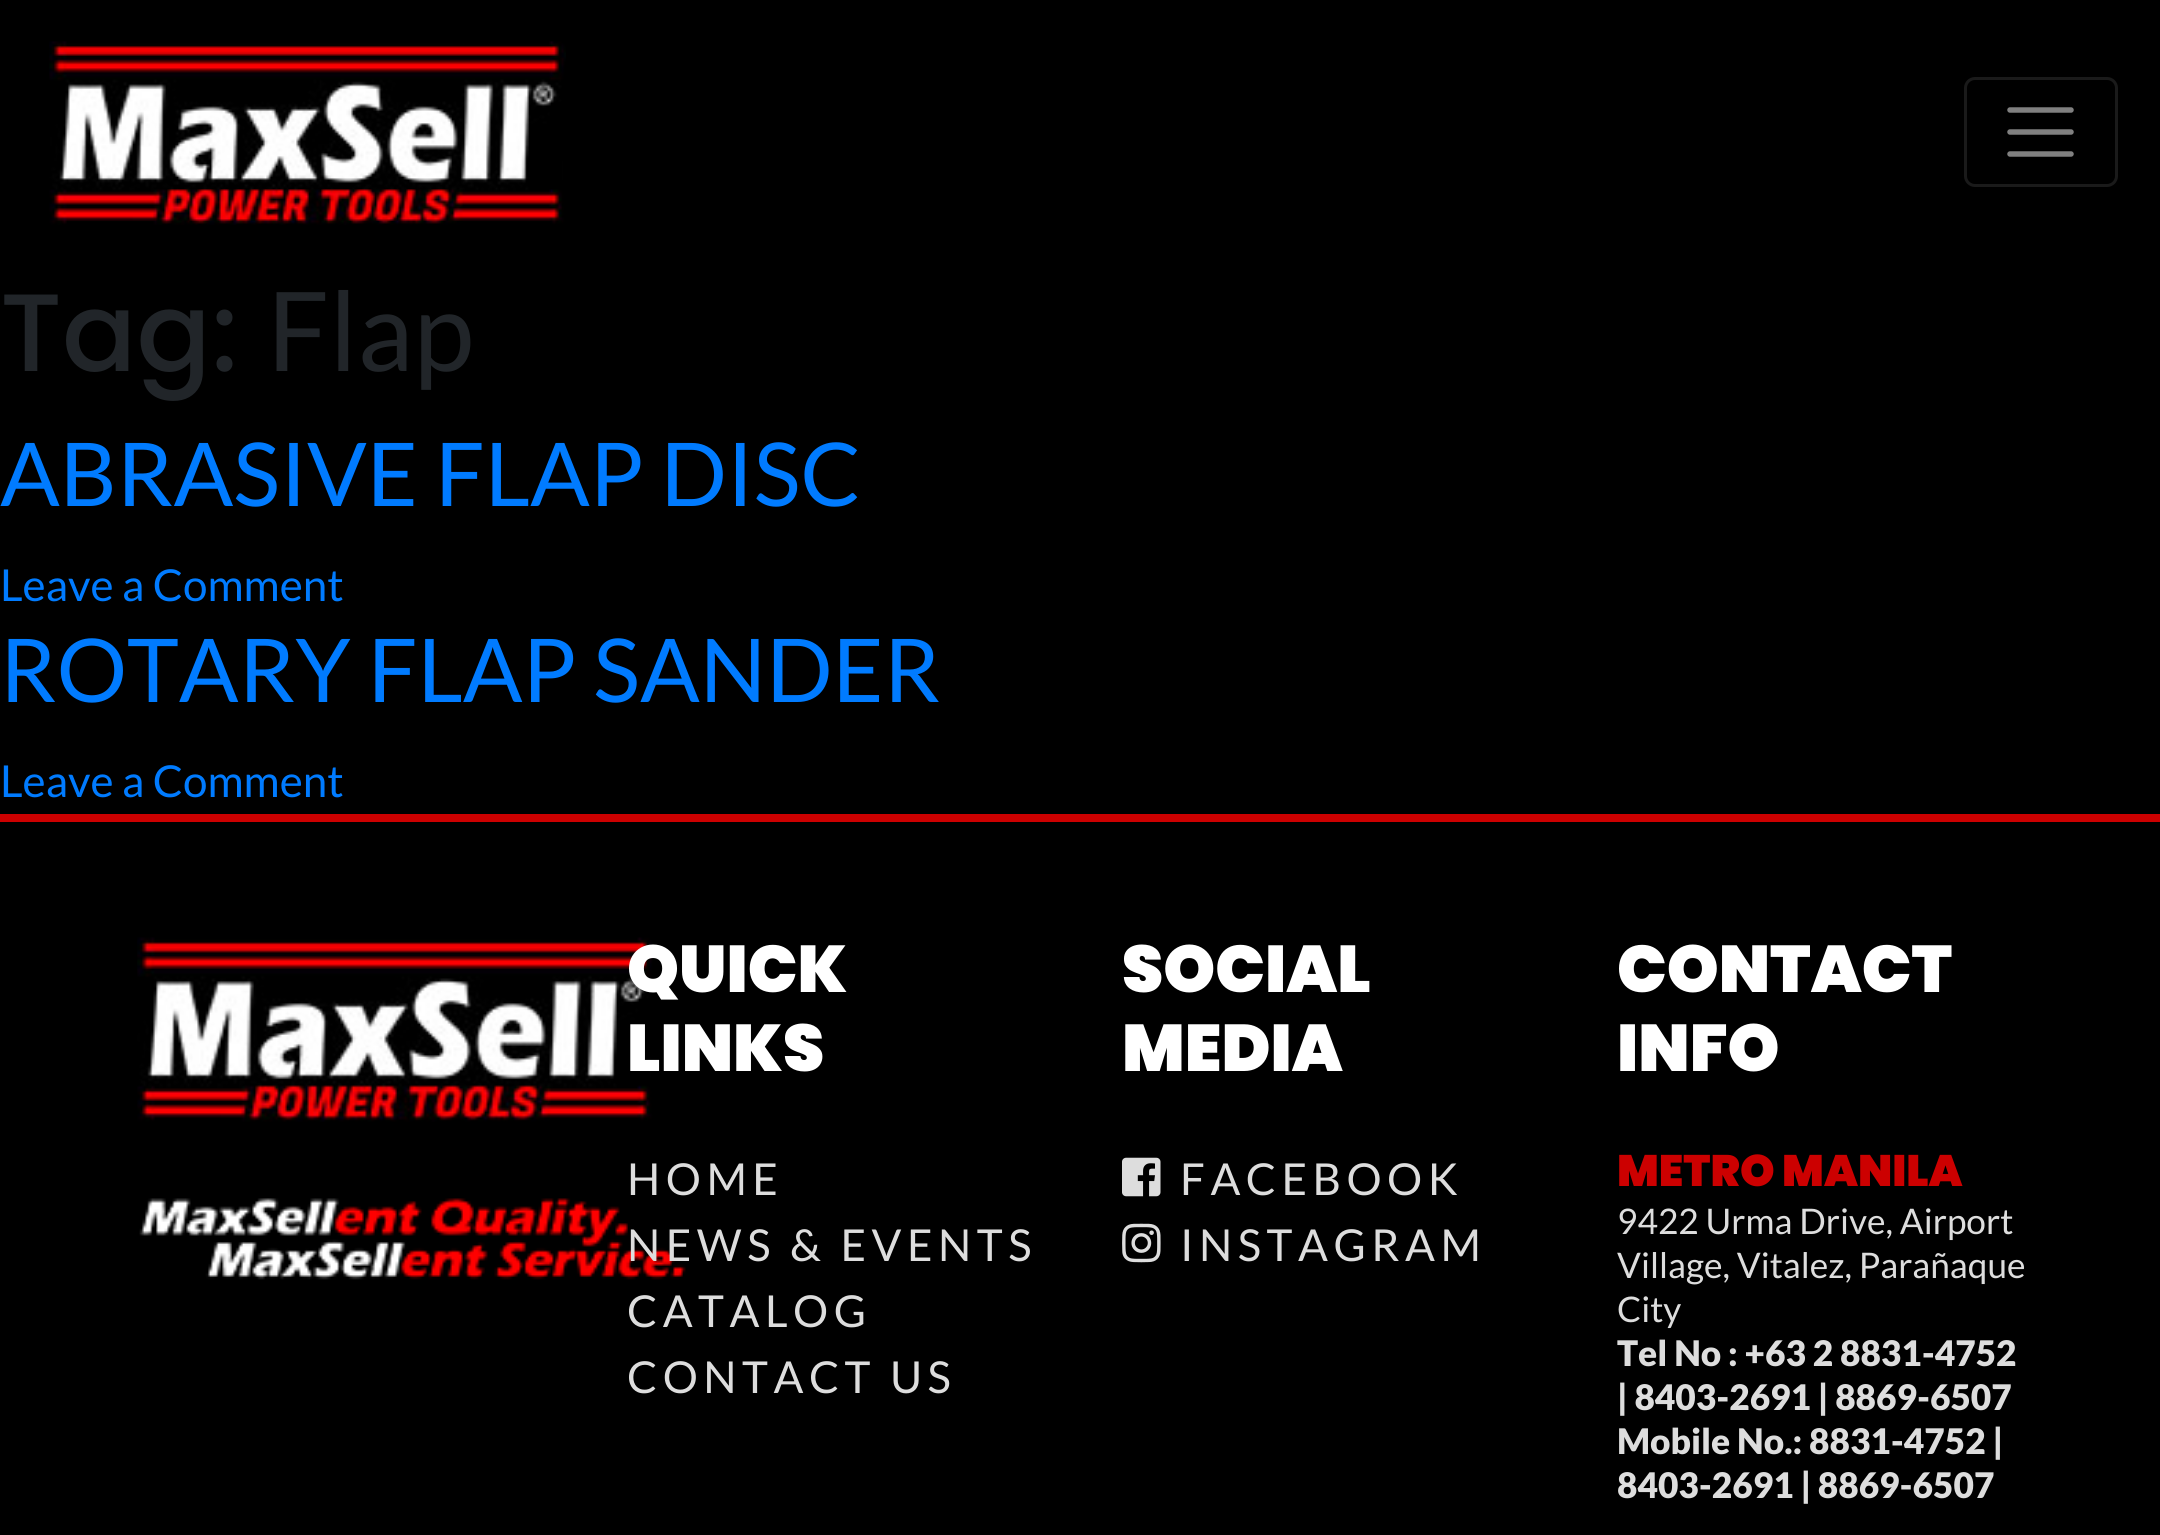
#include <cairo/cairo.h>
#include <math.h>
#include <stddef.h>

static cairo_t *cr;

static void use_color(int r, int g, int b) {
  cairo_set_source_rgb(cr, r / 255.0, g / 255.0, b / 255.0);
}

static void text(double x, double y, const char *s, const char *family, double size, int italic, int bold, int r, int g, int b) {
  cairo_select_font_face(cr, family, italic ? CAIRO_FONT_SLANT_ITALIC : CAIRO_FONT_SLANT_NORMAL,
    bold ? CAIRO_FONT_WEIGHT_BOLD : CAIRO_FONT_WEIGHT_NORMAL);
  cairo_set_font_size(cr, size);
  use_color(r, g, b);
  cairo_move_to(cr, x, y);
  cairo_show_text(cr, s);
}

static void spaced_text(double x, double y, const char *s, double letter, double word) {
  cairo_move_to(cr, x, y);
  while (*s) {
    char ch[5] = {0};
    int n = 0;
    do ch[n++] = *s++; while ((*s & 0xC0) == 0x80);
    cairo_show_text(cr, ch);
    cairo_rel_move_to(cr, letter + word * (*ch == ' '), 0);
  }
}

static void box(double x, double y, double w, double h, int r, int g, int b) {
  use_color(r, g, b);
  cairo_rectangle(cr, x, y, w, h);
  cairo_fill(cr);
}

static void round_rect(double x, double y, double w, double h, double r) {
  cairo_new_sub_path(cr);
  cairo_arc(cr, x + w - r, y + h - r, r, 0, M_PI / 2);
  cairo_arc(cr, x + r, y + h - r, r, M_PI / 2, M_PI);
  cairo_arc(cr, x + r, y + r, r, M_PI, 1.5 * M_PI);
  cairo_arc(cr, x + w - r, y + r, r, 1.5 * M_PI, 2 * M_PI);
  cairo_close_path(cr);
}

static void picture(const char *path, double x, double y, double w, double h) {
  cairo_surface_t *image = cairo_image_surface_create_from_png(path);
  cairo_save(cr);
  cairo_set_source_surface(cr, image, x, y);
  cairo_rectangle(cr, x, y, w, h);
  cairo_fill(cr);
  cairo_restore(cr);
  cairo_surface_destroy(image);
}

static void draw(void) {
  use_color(0, 0, 0);
  cairo_paint(cr);
  picture("img_01.png", 49, 41, 517, 184);
  round_rect(1965.5, 78.5, 151, 107, 9.5);
  use_color(26, 26, 26);
  cairo_set_line_width(cr, 3);
  cairo_stroke(cr);
  cairo_new_path(cr);
  cairo_move_to(cr, 2010, 110);
  cairo_line_to(cr, 2071, 110);
  cairo_move_to(cr, 2010, 132);
  cairo_line_to(cr, 2071, 132);
  cairo_move_to(cr, 2010, 154);
  cairo_line_to(cr, 2071, 154);
  use_color(128, 128, 128);
  cairo_set_line_width(cr, 5.5);
  cairo_set_line_cap(cr, CAIRO_LINE_CAP_ROUND);
  cairo_stroke(cr);
  box(0, 814, 2160, 8, 204, 0, 0);
  picture("img_02.png", 137, 937, 517, 185);
  picture("img_03.png", 139, 1198, 547, 82);
  picture("img_04.png", 1122, 1157, 39, 40);
  picture("img_05.png", 1122, 1223, 39, 40);
  text(0, 371, "Tag:", "Poppins Medium", 110, 0, 0, 33, 37, 41);
  text(267, 371, "Flap", "Lato", 110, 0, 0, 33, 37, 41);
  text(0, 506, "ABRASIVE FLAP DISC", "Lato", 88, 0, 0, 0, 123, 255);
  text(0, 601, "Leave a Comment", "Lato", 44, 0, 0, 0, 123, 255);
  text(0, 702, "ROTARY FLAP SANDER", "Lato", 88, 0, 0, 0, 123, 255);
  text(0, 797, "Leave a Comment", "Lato", 44, 0, 0, 0, 123, 255);
  text(627, 992, "QUICK", "Poppins Black", 66, 0, 0, 255, 255, 255);
  text(627, 1071, "LINKS", "Poppins Black", 66, 0, 0, 255, 255, 255);
  cairo_select_font_face(cr, "Lato", CAIRO_FONT_SLANT_NORMAL, CAIRO_FONT_WEIGHT_NORMAL);
  cairo_set_font_size(cr, 44);
  use_color(221, 221, 221);
  spaced_text(627, 1195, "HOME", 5.5, 0);
  spaced_text(627, 1261, "NEWS & EVENTS", 5.5, 0);
  spaced_text(627, 1327, "CATALOG", 5.5, 0);
  spaced_text(627, 1393, "CONTACT US", 5.5, 0);
  text(1122, 992, "SOCIAL", "Poppins Black", 66, 0, 0, 255, 255, 255);
  text(1122, 1071, "MEDIA", "Poppins Black", 66, 0, 0, 255, 255, 255);
  cairo_select_font_face(cr, "Lato", CAIRO_FONT_SLANT_NORMAL, CAIRO_FONT_WEIGHT_NORMAL);
  cairo_set_font_size(cr, 44);
  use_color(221, 221, 221);
  spaced_text(1180, 1195, "FACEBOOK", 5.5, 0);
  spaced_text(1180, 1261, "INSTAGRAM", 5.5, 0);
  text(1617, 992, "CONTACT", "Poppins Black", 66, 0, 0, 255, 255, 255);
  text(1617, 1071, "INFO", "Poppins Black", 66, 0, 0, 255, 255, 255);
  text(1617, 1186, "METRO MANILA", "Poppins Black", 44, 0, 0, 204, 0, 0);
  text(1617, 1234, "9422 Urma Drive, Airport", "Lato", 35.25, 0, 0, 221, 221, 221);
  text(1617, 1278, "Village, Vitalez, Parañaque", "Lato", 35.25, 0, 0, 221, 221, 221);
  text(1617, 1322, "City", "Lato", 35.25, 0, 0, 221, 221, 221);
  text(1617, 1366, "Tel No : +63 2 8831-4752", "Lato Black", 35.25, 0, 0, 221, 221, 221);
  text(1617, 1410, "| 8403-2691 | 8869-6507", "Lato Black", 35.25, 0, 0, 221, 221, 221);
  text(1617, 1454, "Mobile No.: 8831-4752 |", "Lato Black", 35.25, 0, 0, 221, 221, 221);
  text(1617, 1498, "8403-2691 | 8869-6507", "Lato Black", 35.25, 0, 0, 221, 221, 221);
}

int main(void) {
  cairo_surface_t *surface = cairo_image_surface_create(CAIRO_FORMAT_RGB24, 2160, 1535);
  cr = cairo_create(surface);
  cairo_font_options_t *options = cairo_font_options_create();
  cairo_font_options_set_hint_metrics(options, CAIRO_HINT_METRICS_OFF);
  cairo_font_options_set_hint_style(options, CAIRO_HINT_STYLE_NONE);
  cairo_set_font_options(cr, options);
  cairo_set_miter_limit(cr, 4);
  draw();
  cairo_surface_write_to_png(surface, "out.png");
  cairo_font_options_destroy(options);
  cairo_destroy(cr);
  cairo_surface_destroy(surface);
  return 0;
}
